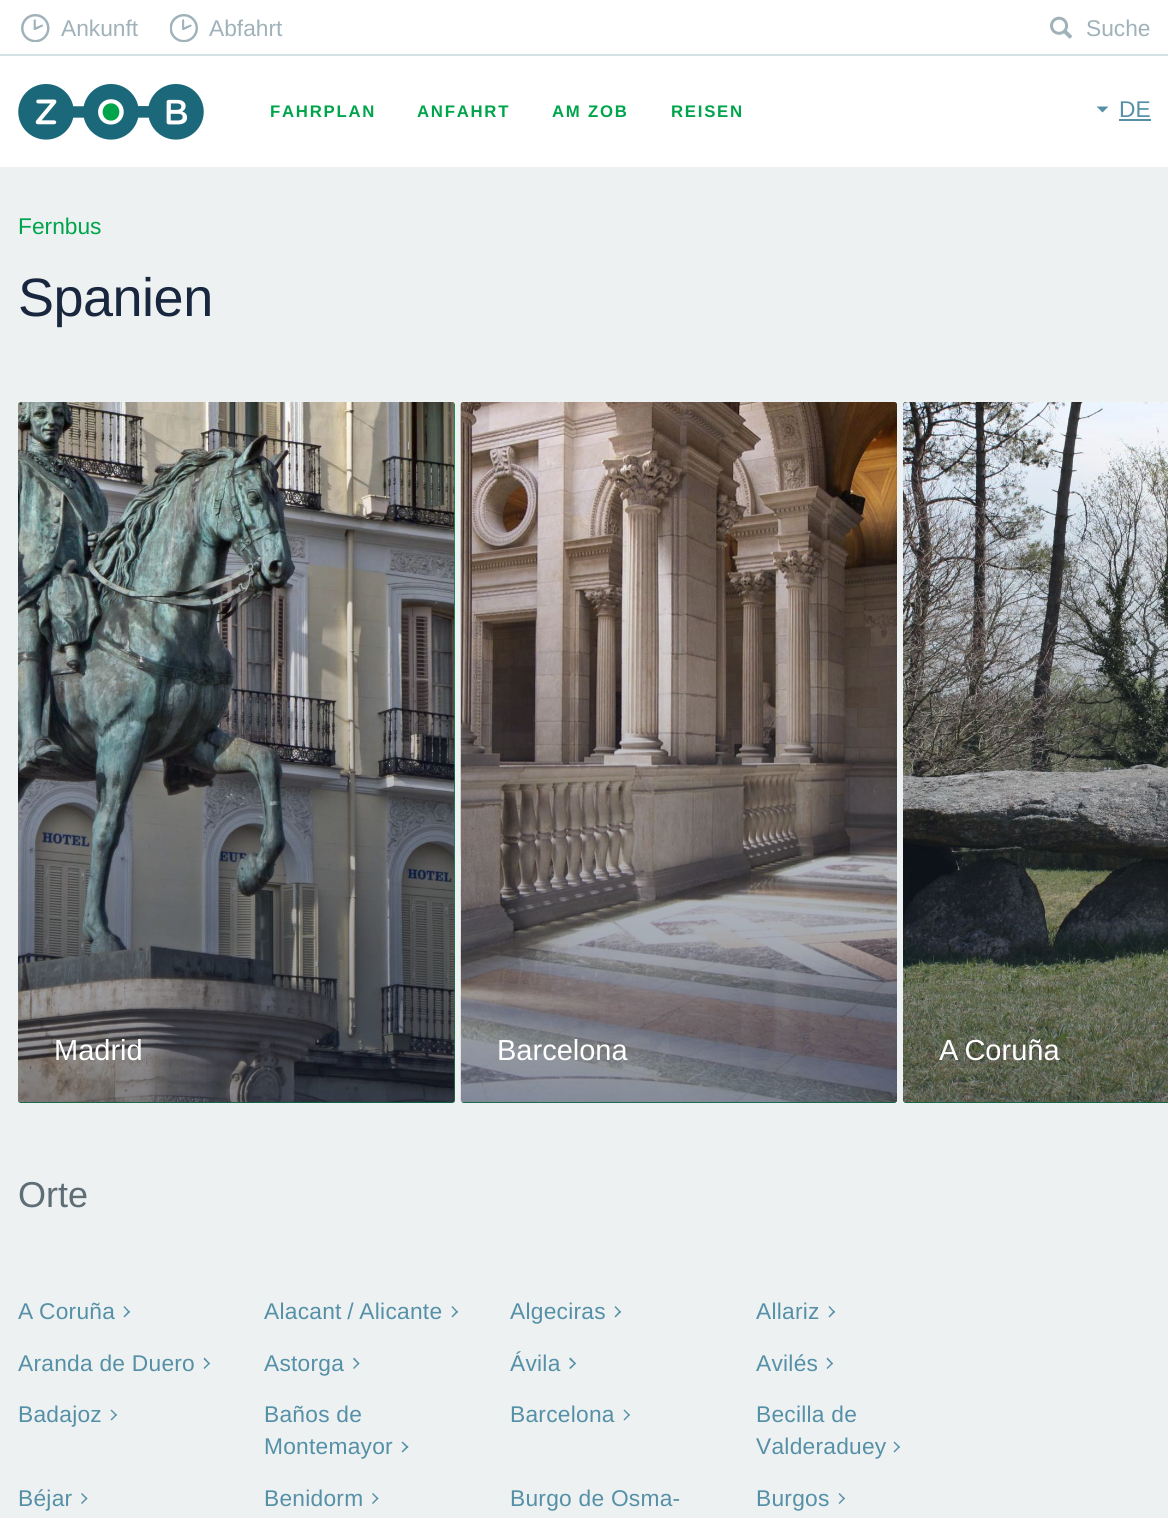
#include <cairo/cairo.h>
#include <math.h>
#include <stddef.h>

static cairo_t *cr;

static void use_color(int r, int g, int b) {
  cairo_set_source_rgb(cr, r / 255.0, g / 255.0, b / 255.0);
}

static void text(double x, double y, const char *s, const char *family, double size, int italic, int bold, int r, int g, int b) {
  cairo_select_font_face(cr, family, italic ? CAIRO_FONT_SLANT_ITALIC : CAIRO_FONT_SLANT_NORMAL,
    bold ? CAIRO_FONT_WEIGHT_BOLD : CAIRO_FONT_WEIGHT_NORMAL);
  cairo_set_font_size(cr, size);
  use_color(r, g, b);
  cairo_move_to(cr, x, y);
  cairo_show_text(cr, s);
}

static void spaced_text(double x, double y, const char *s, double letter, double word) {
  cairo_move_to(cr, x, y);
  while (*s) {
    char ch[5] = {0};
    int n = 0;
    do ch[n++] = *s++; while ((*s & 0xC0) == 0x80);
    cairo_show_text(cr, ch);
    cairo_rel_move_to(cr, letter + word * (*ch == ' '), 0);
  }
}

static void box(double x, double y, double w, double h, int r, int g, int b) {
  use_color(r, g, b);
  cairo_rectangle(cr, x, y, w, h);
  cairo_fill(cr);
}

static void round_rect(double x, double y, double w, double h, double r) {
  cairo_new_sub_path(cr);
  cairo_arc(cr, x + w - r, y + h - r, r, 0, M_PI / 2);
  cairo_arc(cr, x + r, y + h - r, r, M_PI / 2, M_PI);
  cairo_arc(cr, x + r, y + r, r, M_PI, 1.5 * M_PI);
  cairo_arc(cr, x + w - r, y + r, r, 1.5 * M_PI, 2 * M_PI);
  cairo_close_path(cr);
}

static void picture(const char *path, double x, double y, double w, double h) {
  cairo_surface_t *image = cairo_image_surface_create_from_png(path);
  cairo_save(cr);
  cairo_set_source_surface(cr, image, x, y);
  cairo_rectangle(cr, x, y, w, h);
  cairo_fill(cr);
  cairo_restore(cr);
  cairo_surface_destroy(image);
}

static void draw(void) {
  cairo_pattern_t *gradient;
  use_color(237, 241, 242);
  cairo_paint(cr);
  box(0, 0, 1168, 167, 255, 255, 255);
  box(0, 54, 1168, 2, 209, 225, 228);
  picture("img_01.png", 21, 14, 29, 28);
  picture("img_02.png", 170, 14, 28, 28);
  picture("img_03.png", 1050, 16, 22, 23);
  picture("img_04.png", 18, 84, 186, 56);
  use_color(85, 144, 167);
  cairo_new_path(cr);
  cairo_move_to(cr, 1096.5, 106.5);
  cairo_line_to(cr, 1108.5, 106.5);
  cairo_line_to(cr, 1102.5, 112.5);
  cairo_close_path(cr);
  cairo_fill(cr);
  box(1119, 119, 32, 2, 85, 144, 167);
  use_color(0, 164, 75);
  round_rect(18, 402, 437, 701, 3);
  cairo_fill(cr);
  picture("img_05.png", 18, 402, 437, 701);
  gradient = cairo_pattern_create_linear(236, 402, 236, 1103);
  cairo_pattern_add_color_stop_rgba(gradient, 0, 0.098, 0.153, 0.243, 0);
  cairo_pattern_add_color_stop_rgba(gradient, 1, 0.098, 0.153, 0.243, 0.5);
  cairo_set_source(cr, gradient);
  cairo_pattern_destroy(gradient);
  round_rect(18, 402, 437, 701, 3);
  cairo_fill(cr);
  use_color(0, 164, 75);
  round_rect(461, 402, 436, 701, 3);
  cairo_fill(cr);
  picture("img_06.png", 460, 402, 437, 701);
  gradient = cairo_pattern_create_linear(679, 402, 679, 1103);
  cairo_pattern_add_color_stop_rgba(gradient, 0, 0.098, 0.153, 0.243, 0);
  cairo_pattern_add_color_stop_rgba(gradient, 1, 0.098, 0.153, 0.243, 0.5);
  cairo_set_source(cr, gradient);
  cairo_pattern_destroy(gradient);
  round_rect(461, 402, 436, 701, 3);
  cairo_fill(cr);
  use_color(0, 164, 75);
  cairo_new_path(cr);
  cairo_move_to(cr, 906, 402);
  cairo_line_to(cr, 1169, 402);
  cairo_line_to(cr, 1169, 1103);
  cairo_line_to(cr, 906, 1103);
  cairo_curve_to(cr, 904.5, 1103, 903, 1101.5, 903, 1100);
  cairo_line_to(cr, 903, 405);
  cairo_curve_to(cr, 903, 403.5, 904.5, 402, 906, 402);
  cairo_close_path(cr);
  cairo_fill(cr);
  picture("img_07.png", 903, 402, 265, 701);
  gradient = cairo_pattern_create_linear(1121, 402, 1121, 1103);
  cairo_pattern_add_color_stop_rgba(gradient, 0, 0.098, 0.153, 0.243, 0);
  cairo_pattern_add_color_stop_rgba(gradient, 1, 0.098, 0.153, 0.243, 0.5);
  cairo_set_source(cr, gradient);
  cairo_pattern_destroy(gradient);
  cairo_new_path(cr);
  cairo_move_to(cr, 906, 402);
  cairo_line_to(cr, 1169, 402);
  cairo_line_to(cr, 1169, 1103);
  cairo_line_to(cr, 906, 1103);
  cairo_curve_to(cr, 904.5, 1103, 903, 1101.5, 903, 1100);
  cairo_line_to(cr, 903, 405);
  cairo_curve_to(cr, 903, 403.5, 904.5, 402, 906, 402);
  cairo_close_path(cr);
  cairo_fill(cr);
  use_color(85, 144, 167);
  cairo_new_path(cr);
  cairo_move_to(cr, 124.5, 1306);
  cairo_line_to(cr, 130, 1312);
  cairo_line_to(cr, 129, 1313);
  cairo_line_to(cr, 123.5, 1307);
  cairo_close_path(cr);
  cairo_fill(cr);
  cairo_new_path(cr);
  cairo_move_to(cr, 129, 1310.5);
  cairo_line_to(cr, 130, 1312);
  cairo_line_to(cr, 124.5, 1317.5);
  cairo_line_to(cr, 123.5, 1316.5);
  cairo_close_path(cr);
  cairo_fill(cr);
  cairo_new_path(cr);
  cairo_move_to(cr, 452.5, 1306);
  cairo_line_to(cr, 458, 1312);
  cairo_line_to(cr, 457, 1313);
  cairo_line_to(cr, 451.5, 1307);
  cairo_close_path(cr);
  cairo_fill(cr);
  cairo_new_path(cr);
  cairo_move_to(cr, 457, 1310.5);
  cairo_line_to(cr, 458, 1312);
  cairo_line_to(cr, 452.5, 1317.5);
  cairo_line_to(cr, 451.5, 1316.5);
  cairo_close_path(cr);
  cairo_fill(cr);
  cairo_new_path(cr);
  cairo_move_to(cr, 615.5, 1306);
  cairo_line_to(cr, 621, 1312);
  cairo_line_to(cr, 620, 1313);
  cairo_line_to(cr, 614.5, 1307);
  cairo_close_path(cr);
  cairo_fill(cr);
  cairo_new_path(cr);
  cairo_move_to(cr, 620, 1310.5);
  cairo_line_to(cr, 621, 1312);
  cairo_line_to(cr, 615.5, 1317.5);
  cairo_line_to(cr, 614.5, 1316.5);
  cairo_close_path(cr);
  cairo_fill(cr);
  cairo_new_path(cr);
  cairo_move_to(cr, 829.5, 1306);
  cairo_line_to(cr, 835, 1312);
  cairo_line_to(cr, 834, 1313);
  cairo_line_to(cr, 828.5, 1307);
  cairo_close_path(cr);
  cairo_fill(cr);
  cairo_new_path(cr);
  cairo_move_to(cr, 834, 1310.5);
  cairo_line_to(cr, 835, 1312);
  cairo_line_to(cr, 829.5, 1317.5);
  cairo_line_to(cr, 828.5, 1316.5);
  cairo_close_path(cr);
  cairo_fill(cr);
  cairo_new_path(cr);
  cairo_move_to(cr, 204.5, 1357.5);
  cairo_line_to(cr, 210, 1363.5);
  cairo_line_to(cr, 209, 1364.5);
  cairo_line_to(cr, 203.5, 1359);
  cairo_close_path(cr);
  cairo_fill(cr);
  cairo_new_path(cr);
  cairo_move_to(cr, 209, 1362.5);
  cairo_line_to(cr, 210, 1363.5);
  cairo_line_to(cr, 204.5, 1369);
  cairo_line_to(cr, 203.5, 1368);
  cairo_close_path(cr);
  cairo_fill(cr);
  cairo_new_path(cr);
  cairo_move_to(cr, 354, 1357.5);
  cairo_line_to(cr, 359.5, 1363.5);
  cairo_line_to(cr, 358.5, 1364.5);
  cairo_line_to(cr, 353, 1359);
  cairo_close_path(cr);
  cairo_fill(cr);
  cairo_new_path(cr);
  cairo_move_to(cr, 358.5, 1362.5);
  cairo_line_to(cr, 359.5, 1363.5);
  cairo_line_to(cr, 354, 1369);
  cairo_line_to(cr, 353, 1368);
  cairo_close_path(cr);
  cairo_fill(cr);
  cairo_new_path(cr);
  cairo_move_to(cr, 570.5, 1357.5);
  cairo_line_to(cr, 576, 1363.5);
  cairo_line_to(cr, 575, 1364.5);
  cairo_line_to(cr, 569, 1359);
  cairo_close_path(cr);
  cairo_fill(cr);
  cairo_new_path(cr);
  cairo_move_to(cr, 575, 1362.5);
  cairo_line_to(cr, 576, 1363.5);
  cairo_line_to(cr, 570.5, 1369);
  cairo_line_to(cr, 569, 1368);
  cairo_close_path(cr);
  cairo_fill(cr);
  cairo_new_path(cr);
  cairo_move_to(cr, 827.5, 1357.5);
  cairo_line_to(cr, 833, 1363.5);
  cairo_line_to(cr, 832, 1364.5);
  cairo_line_to(cr, 826.5, 1359);
  cairo_close_path(cr);
  cairo_fill(cr);
  cairo_new_path(cr);
  cairo_move_to(cr, 832, 1362.5);
  cairo_line_to(cr, 833, 1363.5);
  cairo_line_to(cr, 827.5, 1369);
  cairo_line_to(cr, 826.5, 1368);
  cairo_close_path(cr);
  cairo_fill(cr);
  cairo_new_path(cr);
  cairo_move_to(cr, 111.5, 1409.5);
  cairo_line_to(cr, 117, 1415);
  cairo_line_to(cr, 116, 1416);
  cairo_line_to(cr, 110.5, 1410.5);
  cairo_close_path(cr);
  cairo_fill(cr);
  cairo_new_path(cr);
  cairo_move_to(cr, 116, 1414);
  cairo_line_to(cr, 117, 1415);
  cairo_line_to(cr, 111.5, 1420.5);
  cairo_line_to(cr, 110.5, 1419.5);
  cairo_close_path(cr);
  cairo_fill(cr);
  cairo_new_path(cr);
  cairo_move_to(cr, 402.5, 1441.5);
  cairo_line_to(cr, 408.5, 1447);
  cairo_line_to(cr, 407, 1448);
  cairo_line_to(cr, 401.5, 1442.5);
  cairo_close_path(cr);
  cairo_fill(cr);
  cairo_new_path(cr);
  cairo_move_to(cr, 407, 1446);
  cairo_line_to(cr, 408.5, 1447);
  cairo_line_to(cr, 402.5, 1452.5);
  cairo_line_to(cr, 401.5, 1451.5);
  cairo_close_path(cr);
  cairo_fill(cr);
  cairo_new_path(cr);
  cairo_move_to(cr, 624.5, 1409.5);
  cairo_line_to(cr, 630, 1415);
  cairo_line_to(cr, 629, 1416);
  cairo_line_to(cr, 623.5, 1410.5);
  cairo_close_path(cr);
  cairo_fill(cr);
  cairo_new_path(cr);
  cairo_move_to(cr, 629, 1414);
  cairo_line_to(cr, 630, 1415);
  cairo_line_to(cr, 624.5, 1420.5);
  cairo_line_to(cr, 623.5, 1419.5);
  cairo_close_path(cr);
  cairo_fill(cr);
  cairo_new_path(cr);
  cairo_move_to(cr, 894.5, 1441.5);
  cairo_line_to(cr, 900, 1447);
  cairo_line_to(cr, 899, 1448);
  cairo_line_to(cr, 893.5, 1442.5);
  cairo_close_path(cr);
  cairo_fill(cr);
  cairo_new_path(cr);
  cairo_move_to(cr, 899, 1446);
  cairo_line_to(cr, 900, 1447);
  cairo_line_to(cr, 894.5, 1452.5);
  cairo_line_to(cr, 893.5, 1451.5);
  cairo_close_path(cr);
  cairo_fill(cr);
  cairo_new_path(cr);
  cairo_move_to(cr, 82, 1493);
  cairo_line_to(cr, 87.5, 1498.5);
  cairo_line_to(cr, 86.5, 1499.5);
  cairo_line_to(cr, 81, 1494);
  cairo_close_path(cr);
  cairo_fill(cr);
  cairo_new_path(cr);
  cairo_move_to(cr, 86.5, 1497.5);
  cairo_line_to(cr, 87.5, 1498.5);
  cairo_line_to(cr, 82, 1504);
  cairo_line_to(cr, 81, 1503);
  cairo_close_path(cr);
  cairo_fill(cr);
  cairo_new_path(cr);
  cairo_move_to(cr, 373, 1493);
  cairo_line_to(cr, 378.5, 1498.5);
  cairo_line_to(cr, 377.5, 1499.5);
  cairo_line_to(cr, 372, 1494);
  cairo_close_path(cr);
  cairo_fill(cr);
  cairo_new_path(cr);
  cairo_move_to(cr, 377.5, 1497.5);
  cairo_line_to(cr, 378.5, 1498.5);
  cairo_line_to(cr, 373, 1504);
  cairo_line_to(cr, 372, 1503);
  cairo_close_path(cr);
  cairo_fill(cr);
  cairo_new_path(cr);
  cairo_move_to(cr, 839.5, 1493);
  cairo_line_to(cr, 845, 1498.5);
  cairo_line_to(cr, 844, 1499.5);
  cairo_line_to(cr, 838.5, 1494);
  cairo_close_path(cr);
  cairo_fill(cr);
  cairo_new_path(cr);
  cairo_move_to(cr, 844, 1497.5);
  cairo_line_to(cr, 845, 1498.5);
  cairo_line_to(cr, 839.5, 1504);
  cairo_line_to(cr, 838.5, 1503);
  cairo_close_path(cr);
  cairo_fill(cr);
  text(61, 36, "Ankunft", "Liberation Sans", 22.75, 0, 0, 159, 177, 185);
  text(209, 36, "Abfahrt", "Liberation Sans", 22.75, 0, 0, 159, 177, 185);
  text(1086, 36, "Suche", "Liberation Sans", 22.75, 0, 0, 159, 177, 185);
  cairo_select_font_face(cr, "Liberation Sans", CAIRO_FONT_SLANT_NORMAL, CAIRO_FONT_WEIGHT_BOLD);
  cairo_set_font_size(cr, 16.75);
  use_color(0, 164, 75);
  spaced_text(270, 117, "FAHRPLAN", 1.75, 0);
  spaced_text(417, 117, "ANFAHRT", 1.75, 0);
  spaced_text(552, 117, "AM ZOB", 1.75, 0);
  spaced_text(671, 117, "REISEN", 1.75, 0);
  text(1119, 117, "DE", "Liberation Sans", 22.75, 0, 0, 85, 144, 167);
  text(18, 234, "Fernbus", "Liberation Sans", 22.75, 0, 0, 0, 164, 75);
  cairo_set_font_size(cr, 54);
  use_color(25, 39, 62);
  spaced_text(18, 316, "Spanien", -0.5, 0);
  text(54, 1060, "Madrid", "Liberation Sans", 29, 0, 0, 255, 255, 255);
  text(497, 1060, "Barcelona", "Liberation Sans", 29, 0, 0, 255, 255, 255);
  spaced_text(939, 1060, "A Coruña", 0, -2);
  text(18, 1207, "Orte", "Liberation Sans", 36, 0, 0, 94, 110, 116);
  cairo_set_font_size(cr, 22.75);
  use_color(85, 144, 167);
  spaced_text(18, 1319, "A Coruña", 0.25, -1);
  spaced_text(264, 1319, "Alacant / Alicante", 0.25, -1);
  spaced_text(510, 1319, "Algeciras", 0.25, 0);
  spaced_text(756, 1319, "Allariz", 0.25, 0);
  spaced_text(18, 1371, "Aranda de Duero", 0.25, 0);
  spaced_text(264, 1371, "Astorga", 0.25, 0);
  spaced_text(510, 1371, "Ávila", 0.25, 0);
  spaced_text(756, 1371, "Avilés", 0.25, 0);
  spaced_text(18, 1422, "Badajoz", 0.25, 0);
  spaced_text(264, 1422, "Baños de", 0.25, 0);
  spaced_text(264, 1454, "Montemayor", 0.25, 0);
  spaced_text(510, 1422, "Barcelona", 0.25, 0);
  spaced_text(756, 1422, "Becilla de", 0.25, 0);
  spaced_text(756, 1454, "Valderaduey", 0.25, 0);
  spaced_text(18, 1506, "Béjar", 0.25, 0);
  spaced_text(264, 1506, "Benidorm", 0.25, 0);
  spaced_text(510, 1506, "Burgo de Osma-", 0.25, 0);
  spaced_text(756, 1506, "Burgos", 0.25, 0);
}

int main(void) {
  cairo_surface_t *surface = cairo_image_surface_create(CAIRO_FORMAT_RGB24, 1168, 1518);
  cr = cairo_create(surface);
  cairo_font_options_t *options = cairo_font_options_create();
  cairo_font_options_set_hint_metrics(options, CAIRO_HINT_METRICS_OFF);
  cairo_font_options_set_hint_style(options, CAIRO_HINT_STYLE_NONE);
  cairo_set_font_options(cr, options);
  cairo_set_miter_limit(cr, 4);
  draw();
  cairo_surface_write_to_png(surface, "out.png");
  cairo_font_options_destroy(options);
  cairo_destroy(cr);
  cairo_surface_destroy(surface);
  return 0;
}
